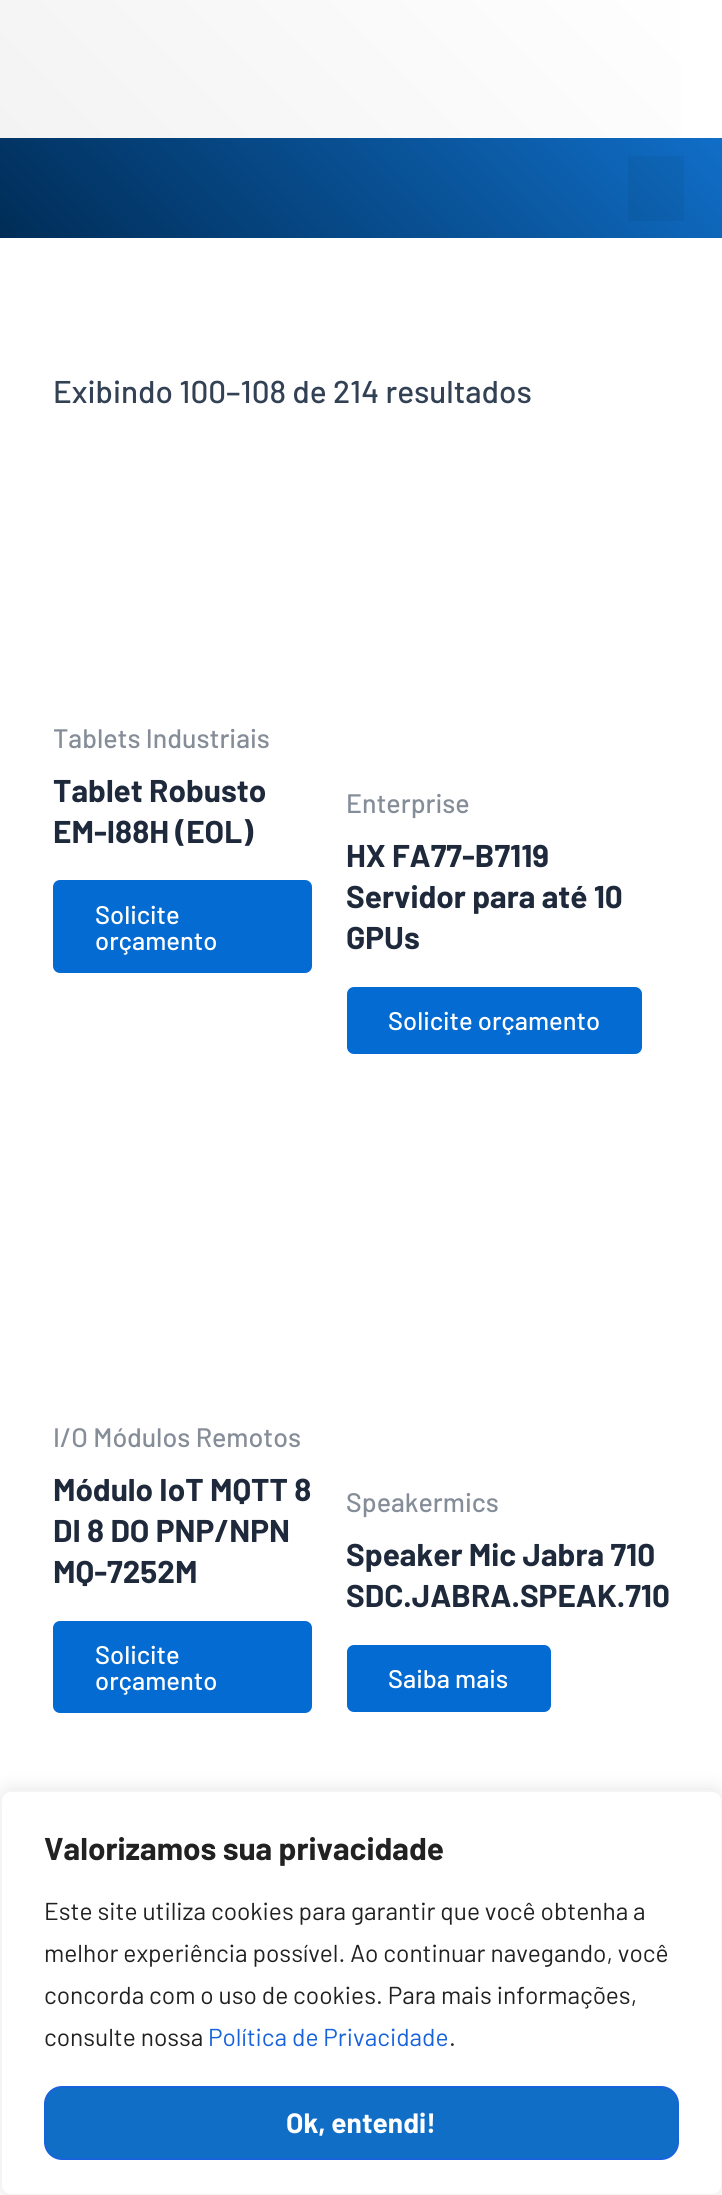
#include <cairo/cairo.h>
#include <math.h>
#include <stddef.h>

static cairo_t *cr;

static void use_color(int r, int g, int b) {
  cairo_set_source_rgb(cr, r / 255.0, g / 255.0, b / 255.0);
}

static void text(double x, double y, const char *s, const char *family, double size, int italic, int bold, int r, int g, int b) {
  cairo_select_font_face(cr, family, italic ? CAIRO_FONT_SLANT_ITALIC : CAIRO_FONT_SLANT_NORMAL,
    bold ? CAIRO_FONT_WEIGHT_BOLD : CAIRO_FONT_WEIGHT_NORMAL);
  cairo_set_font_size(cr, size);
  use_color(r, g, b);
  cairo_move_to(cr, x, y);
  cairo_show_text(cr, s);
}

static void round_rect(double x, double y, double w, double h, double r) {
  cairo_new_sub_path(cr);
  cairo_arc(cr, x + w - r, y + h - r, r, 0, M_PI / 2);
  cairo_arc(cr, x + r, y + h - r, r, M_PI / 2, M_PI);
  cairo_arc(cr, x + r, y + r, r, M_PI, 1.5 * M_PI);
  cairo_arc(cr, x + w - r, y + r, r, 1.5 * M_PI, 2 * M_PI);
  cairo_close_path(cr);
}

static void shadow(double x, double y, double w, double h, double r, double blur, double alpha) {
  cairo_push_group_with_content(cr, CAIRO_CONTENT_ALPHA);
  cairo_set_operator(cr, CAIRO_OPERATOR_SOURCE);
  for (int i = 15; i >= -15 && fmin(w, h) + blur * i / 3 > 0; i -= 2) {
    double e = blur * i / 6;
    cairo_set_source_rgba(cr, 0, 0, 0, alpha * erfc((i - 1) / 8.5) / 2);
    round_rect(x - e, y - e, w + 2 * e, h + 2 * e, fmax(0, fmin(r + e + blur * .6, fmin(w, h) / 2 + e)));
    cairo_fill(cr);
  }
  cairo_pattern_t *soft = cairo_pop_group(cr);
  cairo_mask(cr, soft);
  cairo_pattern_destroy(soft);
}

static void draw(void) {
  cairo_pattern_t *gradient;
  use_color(255, 255, 255);
  cairo_paint(cr);
  gradient = cairo_pattern_create_linear(146, 284, 577, -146);
  cairo_pattern_add_color_stop_rgba(gradient, 0, 0.953, 0.953, 0.953, 1);
  cairo_pattern_add_color_stop_rgba(gradient, 1, 1, 1, 1, 1);
  cairo_set_source(cr, gradient);
  cairo_pattern_destroy(gradient);
  cairo_rectangle(cr, 0, 0, 681, 138);
  cairo_fill(cr);
  gradient = cairo_pattern_create_linear(156, 394, 567, -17);
  cairo_pattern_add_color_stop_rgba(gradient, 0, 0, 0.176, 0.341, 1);
  cairo_pattern_add_color_stop_rgba(gradient, 1, 0.063, 0.431, 0.78, 1);
  cairo_set_source(cr, gradient);
  cairo_pattern_destroy(gradient);
  cairo_rectangle(cr, 0, 138, 722, 100);
  cairo_fill(cr);
  gradient = cairo_pattern_create_linear(156, 394, 567, -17);
  cairo_pattern_add_color_stop_rgba(gradient, 0, 0, 0.169, 0.325, 1);
  cairo_pattern_add_color_stop_rgba(gradient, 1, 0.059, 0.412, 0.741, 1);
  cairo_set_source(cr, gradient);
  cairo_pattern_destroy(gradient);
  cairo_rectangle(cr, 628, 156, 56, 65);
  cairo_fill(cr);
  use_color(4, 107, 210);
  round_rect(53, 880, 259, 93, 7);
  cairo_fill(cr);
  round_rect(347, 987, 295, 67, 7);
  cairo_fill(cr);
  round_rect(53, 1621, 259, 92, 7);
  cairo_fill(cr);
  round_rect(347, 1645, 204, 67, 7);
  cairo_fill(cr);
  use_color(172, 171, 171);
  shadow(0, 1789, 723, 406, 11, 9, 0.3);
  use_color(255, 255, 255);
  round_rect(1, 1791, 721, 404, 10);
  cairo_fill_preserve(cr);
  use_color(244, 244, 244);
  cairo_stroke(cr);
  use_color(16, 110, 199);
  round_rect(45, 2087, 633, 72, 17);
  cairo_fill_preserve(cr);
  use_color(24, 99, 220);
  cairo_stroke(cr);
  text(53, 403, "Exibindo 100–108 de 214 resultados", "Barlow Medium", 31.5, 0, 0, 51, 65, 85);
  text(53, 748, "Tablets Industriais", "Barlow Medium", 26.75, 0, 0, 133, 141, 153);
  text(53, 802, "Tablet Robusto", "Barlow", 31.5, 0, 1, 30, 41, 59);
  text(53, 843, "EM-I88H (EOL)", "Barlow", 31.5, 0, 1, 30, 41, 59);
  text(95, 924, "Solicite", "Barlow Medium", 25.5, 0, 0, 255, 255, 255);
  text(95, 950, "orçamento", "Barlow Medium", 25.5, 0, 0, 255, 255, 255);
  text(346, 813, "Enterprise", "Barlow Medium", 26.75, 0, 0, 133, 141, 153);
  text(346, 867, "HX FA77-B7119", "Barlow", 31.5, 0, 1, 30, 41, 59);
  text(346, 908, "Servidor para até 10", "Barlow", 31.5, 0, 1, 30, 41, 59);
  text(346, 949, "GPUs", "Barlow", 31.5, 0, 1, 30, 41, 59);
  text(388, 1030, "Solicite orçamento", "Barlow Medium", 25.5, 0, 0, 255, 255, 255);
  text(53, 1447, "I/O Módulos Remotos", "Barlow Medium", 26.75, 0, 0, 133, 141, 153);
  text(53, 1501, "Módulo IoT MQTT 8", "Barlow", 31.5, 0, 1, 30, 41, 59);
  text(53, 1542, "DI 8 DO PNP/NPN", "Barlow", 31.5, 0, 1, 30, 41, 59);
  text(53, 1583, "MQ-7252M", "Barlow", 31.5, 0, 1, 30, 41, 59);
  text(95, 1664, "Solicite", "Barlow Medium", 25.5, 0, 0, 255, 255, 255);
  text(95, 1690, "orçamento", "Barlow Medium", 25.5, 0, 0, 255, 255, 255);
  text(346, 1512, "Speakermics", "Barlow Medium", 26.75, 0, 0, 133, 141, 153);
  text(346, 1566, "Speaker Mic Jabra 710", "Barlow", 31.5, 0, 1, 30, 41, 59);
  text(346, 1607, "SDC.JABRA.SPEAK.710", "Barlow", 31.5, 0, 1, 30, 41, 59);
  text(388, 1688, "Saiba mais", "Barlow Medium", 25.5, 0, 0, 255, 255, 255);
  text(44, 1860, "Valorizamos sua privacidade", "Barlow", 31.5, 0, 1, 33, 33, 33);
  text(44, 1920, "Este site utiliza cookies para garantir que você obtenha a", "Barlow", 24.5, 0, 0, 33, 33, 33);
  text(44, 1962, "melhor experiência possível. Ao continuar navegando, você", "Barlow", 24.5, 0, 0, 33, 33, 33);
  text(44, 2004, "concorda com o uso de cookies. Para mais informações,", "Barlow", 24.5, 0, 0, 33, 33, 33);
  text(44, 2046, "consulte nossa", "Barlow", 24.5, 0, 0, 33, 33, 33);
  text(208, 2046, "Política de Privacidade", "Barlow", 24.5, 0, 0, 24, 99, 220);
  text(449, 2046, ".", "Barlow", 24.5, 0, 0, 33, 33, 33);
  text(286, 2133, "Ok, entendi!", "Barlow", 28, 0, 1, 255, 255, 255);
}

int main(void) {
  cairo_surface_t *surface = cairo_image_surface_create(CAIRO_FORMAT_RGB24, 722, 2195);
  cr = cairo_create(surface);
  cairo_font_options_t *options = cairo_font_options_create();
  cairo_font_options_set_hint_metrics(options, CAIRO_HINT_METRICS_OFF);
  cairo_font_options_set_hint_style(options, CAIRO_HINT_STYLE_NONE);
  cairo_set_font_options(cr, options);
  cairo_set_miter_limit(cr, 4);
  draw();
  cairo_surface_write_to_png(surface, "out.png");
  cairo_font_options_destroy(options);
  cairo_destroy(cr);
  cairo_surface_destroy(surface);
  return 0;
}
